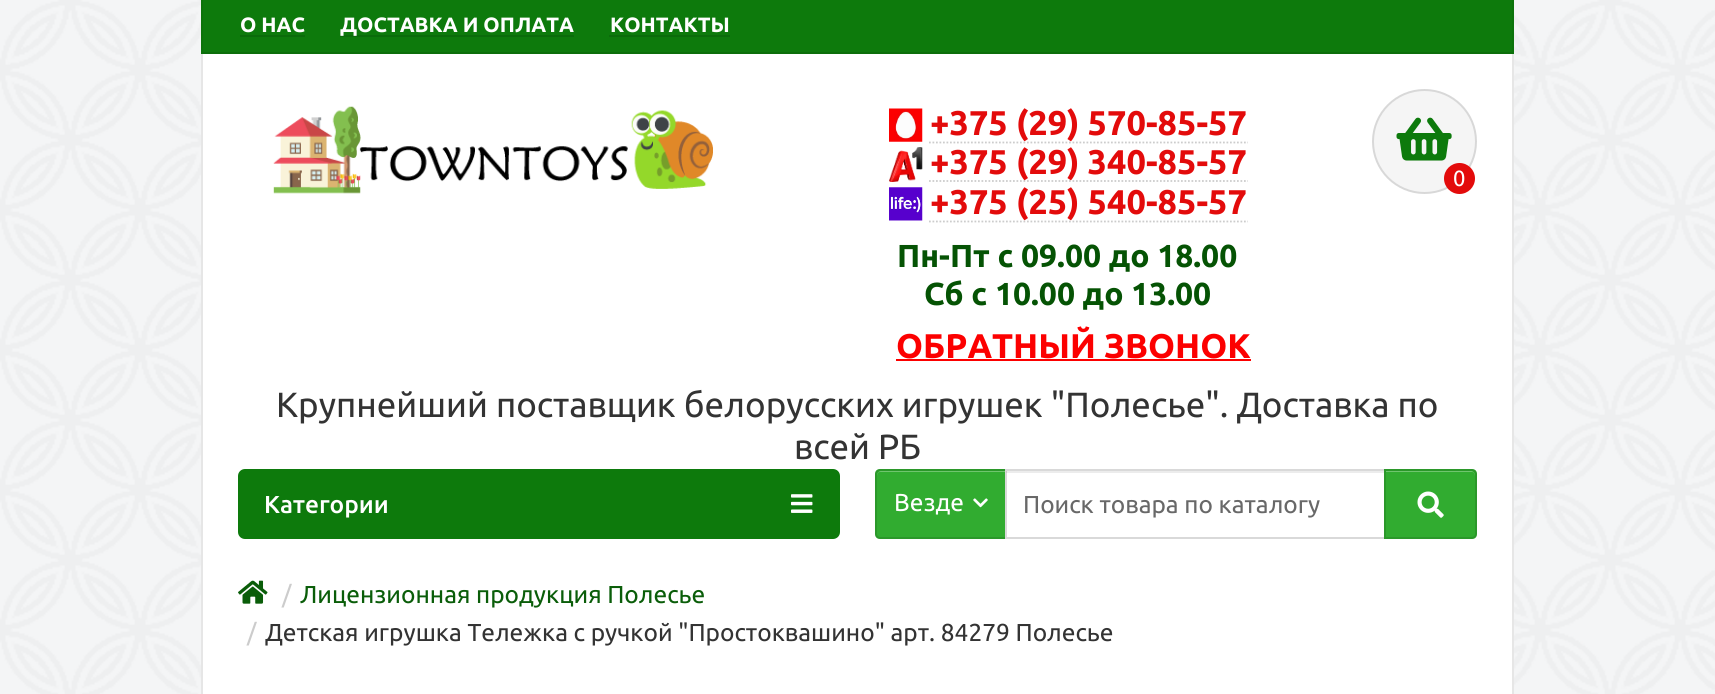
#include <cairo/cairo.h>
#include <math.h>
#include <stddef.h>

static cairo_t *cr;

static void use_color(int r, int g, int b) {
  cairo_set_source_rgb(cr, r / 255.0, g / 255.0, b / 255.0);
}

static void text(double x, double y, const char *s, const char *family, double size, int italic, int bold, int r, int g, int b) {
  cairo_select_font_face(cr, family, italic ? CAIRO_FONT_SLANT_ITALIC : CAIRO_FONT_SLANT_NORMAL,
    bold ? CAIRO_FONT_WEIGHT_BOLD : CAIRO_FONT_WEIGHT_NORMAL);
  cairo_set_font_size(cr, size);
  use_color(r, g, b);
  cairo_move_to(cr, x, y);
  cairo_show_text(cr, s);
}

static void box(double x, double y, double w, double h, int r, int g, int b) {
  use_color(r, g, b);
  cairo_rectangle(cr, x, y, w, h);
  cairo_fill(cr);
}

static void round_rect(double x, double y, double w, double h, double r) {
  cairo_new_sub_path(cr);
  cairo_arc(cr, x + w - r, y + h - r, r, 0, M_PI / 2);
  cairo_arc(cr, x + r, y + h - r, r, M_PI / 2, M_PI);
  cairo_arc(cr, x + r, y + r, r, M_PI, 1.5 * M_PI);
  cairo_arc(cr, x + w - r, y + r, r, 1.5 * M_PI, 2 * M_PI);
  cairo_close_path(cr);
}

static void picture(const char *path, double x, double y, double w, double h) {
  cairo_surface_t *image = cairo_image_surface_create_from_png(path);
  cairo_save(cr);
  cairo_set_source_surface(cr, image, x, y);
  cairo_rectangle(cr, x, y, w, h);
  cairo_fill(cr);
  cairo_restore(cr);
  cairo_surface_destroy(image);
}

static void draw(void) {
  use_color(255, 255, 255);
  cairo_paint(cr);
  picture("img_01.png", 0, 0, 1715, 694);
  box(201, 0, 1313, 54, 13, 122, 12);
  use_color(12, 115, 11);
  cairo_new_path(cr);
  cairo_move_to(cr, 1514, -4);
  cairo_line_to(cr, 1514, 54);
  cairo_line_to(cr, 1512, 52);
  cairo_line_to(cr, 1512, -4);
  cairo_close_path(cr);
  cairo_fill(cr);
  cairo_set_source_rgba(cr, 0, 0, 0, 0.1);
  cairo_new_path(cr);
  cairo_move_to(cr, 1514, 54);
  cairo_line_to(cr, 201, 54);
  cairo_line_to(cr, 203, 52);
  cairo_line_to(cr, 1512, 52);
  cairo_close_path(cr);
  cairo_fill(cr);
  cairo_set_source_rgba(cr, 0, 0, 0, 0.06);
  cairo_new_path(cr);
  cairo_move_to(cr, 201, 54);
  cairo_line_to(cr, 201, -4);
  cairo_line_to(cr, 203, -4);
  cairo_line_to(cr, 203, 52);
  cairo_close_path(cr);
  cairo_fill(cr);
  box(240, 35, 65, 2, 11, 107, 11);
  box(340, 35, 234, 2, 11, 107, 11);
  box(609, 35, 121, 2, 11, 107, 11);
  box(203, 54, 1309, 520, 255, 255, 255);
  box(1512, 54, 2, 520, 230, 230, 230);
  box(201, 54, 2, 520, 230, 230, 230);
  picture("img_02.png", 273, 106, 440, 88);
  picture("img_03.png", 889, 108, 34, 34);
  cairo_new_path(cr);
  cairo_move_to(cr, 929, 142.5);
  cairo_line_to(cr, 1248, 142.5);
  use_color(204, 204, 204);
  cairo_set_line_width(cr, 1.8);
  cairo_set_dash(cr, (double[]){1.75, 1.75}, 2, 0);
  cairo_stroke(cr);
  picture("img_04.png", 889, 147, 34, 35);
  cairo_new_path(cr);
  cairo_move_to(cr, 929, 181);
  cairo_line_to(cr, 1248, 181);
  cairo_stroke(cr);
  picture("img_05.png", 889, 187, 34, 34);
  cairo_new_path(cr);
  cairo_move_to(cr, 929, 221.5);
  cairo_line_to(cr, 1248, 221.5);
  cairo_stroke(cr);
  box(896, 359, 355, 2, 252, 0, 0);
  use_color(245, 245, 245);
  cairo_arc(cr, 1424.5, 141.5, 52.5, 0, 2 * M_PI);
  cairo_fill(cr);
  cairo_arc(cr, 1424.5, 141.5, 51.5, 0, 2 * M_PI);
  cairo_set_source_rgba(cr, 0, 0, 0, 0.12);
  cairo_set_line_width(cr, 2);
  cairo_set_dash(cr, NULL, 0, 0);
  cairo_stroke(cr);
  picture("img_06.png", 1396, 117, 56, 44);
  use_color(227, 11, 11);
  cairo_arc(cr, 1459.5, 178.5, 15.5, 0, 2 * M_PI);
  cairo_fill(cr);
  use_color(13, 122, 12);
  round_rect(238, 469, 602, 70, 7);
  cairo_fill(cr);
  picture("img_07.png", 791, 494, 22, 19);
  use_color(49, 172, 48);
  cairo_new_path(cr);
  cairo_move_to(cr, 880, 469);
  cairo_line_to(cr, 1008, 469);
  cairo_line_to(cr, 1008, 539);
  cairo_line_to(cr, 880, 539);
  cairo_curve_to(cr, 877, 539, 875, 537, 875, 534);
  cairo_line_to(cr, 875, 474);
  cairo_curve_to(cr, 875, 471, 877, 469, 880, 469);
  cairo_close_path(cr);
  cairo_fill(cr);
  use_color(111, 197, 110);
  cairo_new_path(cr);
  cairo_move_to(cr, 880, 472);
  cairo_line_to(cr, 1006, 472);
  cairo_line_to(cr, 1006, 471);
  cairo_line_to(cr, 881, 471);
  cairo_curve_to(cr, 879, 471, 877, 473, 877, 475);
  cairo_line_to(cr, 877, 476);
  cairo_curve_to(cr, 877, 474, 878, 472, 880, 472);
  cairo_close_path(cr);
  cairo_fill(cr);
  cairo_new_path(cr);
  cairo_move_to(cr, 880, 470);
  cairo_line_to(cr, 1007, 470);
  cairo_line_to(cr, 1007, 538);
  cairo_line_to(cr, 880, 538);
  cairo_curve_to(cr, 878, 538, 876, 536, 876, 534);
  cairo_line_to(cr, 876, 474);
  cairo_curve_to(cr, 876, 472, 878, 470, 880, 470);
  cairo_close_path(cr);
  cairo_set_source_rgba(cr, 0, 0, 0, 0.12);
  cairo_stroke(cr);
  picture("img_08.png", 973, 498, 15, 10);
  box(1005, 469, 3, 70, 255, 255, 255);
  box(1006, 471, 378, 2, 236, 236, 236);
  cairo_rectangle(cr, 1006, 470, 379, 68);
  cairo_set_source_rgba(cr, 0, 0, 0, 0.15);
  cairo_stroke(cr);
  use_color(49, 172, 48);
  cairo_new_path(cr);
  cairo_move_to(cr, 1384, 469);
  cairo_line_to(cr, 1472, 469);
  cairo_curve_to(cr, 1475, 469, 1477, 471, 1477, 474);
  cairo_line_to(cr, 1477, 534);
  cairo_curve_to(cr, 1477, 537, 1475, 539, 1472, 539);
  cairo_line_to(cr, 1384, 539);
  cairo_close_path(cr);
  cairo_fill(cr);
  use_color(111, 197, 110);
  cairo_new_path(cr);
  cairo_move_to(cr, 1386, 472);
  cairo_line_to(cr, 1472, 472);
  cairo_curve_to(cr, 1474, 472, 1475, 474, 1475, 476);
  cairo_line_to(cr, 1475, 475);
  cairo_curve_to(cr, 1475, 473, 1473, 471, 1471, 471);
  cairo_line_to(cr, 1386, 471);
  cairo_close_path(cr);
  cairo_fill(cr);
  cairo_new_path(cr);
  cairo_move_to(cr, 1385, 470);
  cairo_line_to(cr, 1472, 470);
  cairo_curve_to(cr, 1474, 470, 1476, 472, 1476, 474);
  cairo_line_to(cr, 1476, 534);
  cairo_curve_to(cr, 1476, 536, 1474, 538, 1472, 538);
  cairo_line_to(cr, 1385, 538);
  cairo_close_path(cr);
  cairo_set_source_rgba(cr, 0, 0, 0, 0.12);
  cairo_stroke(cr);
  picture("img_09.png", 1417, 491, 27, 27);
  box(203, 574, 1309, 120, 255, 255, 255);
  box(1512, 574, 2, 120, 230, 230, 230);
  box(201, 574, 2, 120, 230, 230, 230);
  picture("img_10.png", 238, 580, 30, 24);
  text(240, 32, "О НАС", "Ubuntu", 20.75, 0, 1, 255, 255, 255);
  text(340, 32, "ДОСТАВКА И ОПЛАТА", "Ubuntu", 20.75, 0, 1, 255, 255, 255);
  text(610, 32, "КОНТАКТЫ", "Ubuntu", 20.75, 0, 1, 255, 255, 255);
  text(930, 135, "+375 (29) 570-85-57", "Ubuntu", 34.25, 0, 1, 227, 11, 11);
  text(930, 174, "+375 (29) 340-85-57", "Ubuntu", 34.25, 0, 1, 227, 11, 11);
  text(930, 214, "+375 (25) 540-85-57", "Ubuntu", 34.25, 0, 1, 227, 11, 11);
  text(897, 267, "Пн-Пт с 09.00 до 18.00", "Ubuntu", 31.8, 0, 1, 5, 83, 4);
  text(924, 305, "Сб с 10.00 до 13.00", "Ubuntu", 31.8, 0, 1, 5, 83, 4);
  text(896, 358, "ОБРАТНЫЙ ЗВОНОК", "Ubuntu", 34.25, 0, 1, 252, 0, 0);
  text(1453, 186, "0", "Ubuntu", 22, 0, 0, 255, 255, 255);
  text(276, 417, "Крупнейший поставщик белорусских игрушек \"Полесье\". Доставка по", "Ubuntu", 35, 0, 0, 51, 51, 51);
  text(794, 459, "всей РБ", "Ubuntu", 35, 0, 0, 51, 51, 51);
  text(264, 513, "Категории", "Ubuntu Medium", 24.5, 0, 0, 255, 255, 255);
  text(894, 511, "Везде", "Ubuntu", 24.5, 0, 0, 255, 255, 255);
  text(1023, 513, "Поиск товара по каталогу", "Ubuntu", 24.5, 0, 0, 104, 104, 104);
  text(282, 603, "/", "Ubuntu", 24.5, 0, 0, 204, 204, 204);
  text(300, 603, "Лицензионная продукция Полесье", "Ubuntu", 24.5, 0, 0, 10, 93, 9);
  text(247, 641, "/", "Ubuntu", 24.5, 0, 0, 204, 204, 204);
  text(265, 641, "Детская игрушка Тележка с ручкой \"Простоквашино\" арт. 84279 Полесье", "Ubuntu", 24.5, 0, 0, 51, 51, 51);
}

int main(void) {
  cairo_surface_t *surface = cairo_image_surface_create(CAIRO_FORMAT_RGB24, 1715, 694);
  cr = cairo_create(surface);
  cairo_font_options_t *options = cairo_font_options_create();
  cairo_font_options_set_hint_metrics(options, CAIRO_HINT_METRICS_OFF);
  cairo_font_options_set_hint_style(options, CAIRO_HINT_STYLE_NONE);
  cairo_set_font_options(cr, options);
  cairo_set_miter_limit(cr, 4);
  draw();
  cairo_surface_write_to_png(surface, "out.png");
  cairo_font_options_destroy(options);
  cairo_destroy(cr);
  cairo_surface_destroy(surface);
  return 0;
}
